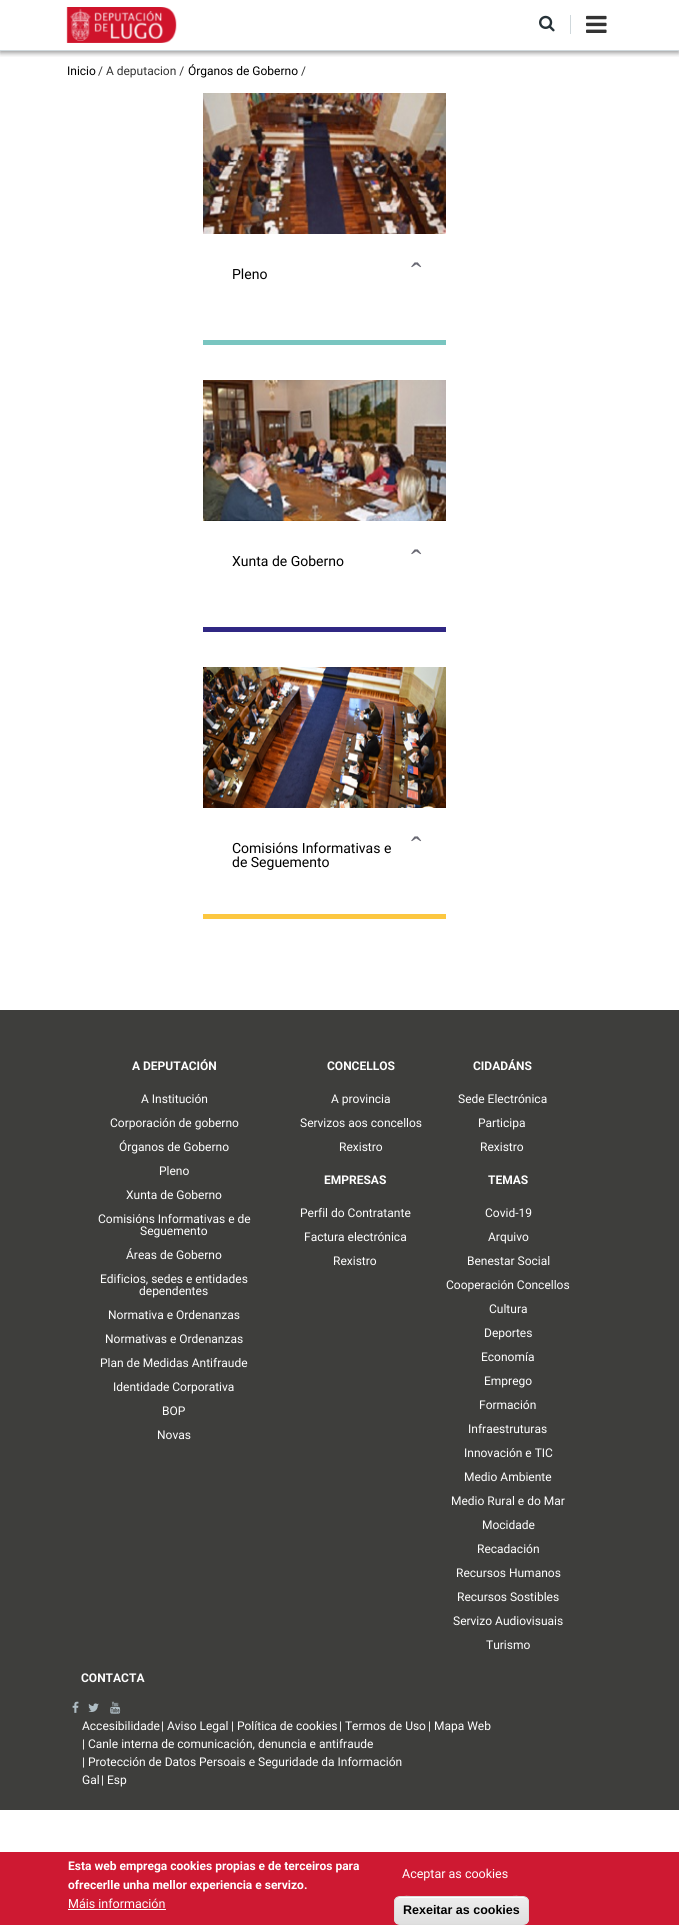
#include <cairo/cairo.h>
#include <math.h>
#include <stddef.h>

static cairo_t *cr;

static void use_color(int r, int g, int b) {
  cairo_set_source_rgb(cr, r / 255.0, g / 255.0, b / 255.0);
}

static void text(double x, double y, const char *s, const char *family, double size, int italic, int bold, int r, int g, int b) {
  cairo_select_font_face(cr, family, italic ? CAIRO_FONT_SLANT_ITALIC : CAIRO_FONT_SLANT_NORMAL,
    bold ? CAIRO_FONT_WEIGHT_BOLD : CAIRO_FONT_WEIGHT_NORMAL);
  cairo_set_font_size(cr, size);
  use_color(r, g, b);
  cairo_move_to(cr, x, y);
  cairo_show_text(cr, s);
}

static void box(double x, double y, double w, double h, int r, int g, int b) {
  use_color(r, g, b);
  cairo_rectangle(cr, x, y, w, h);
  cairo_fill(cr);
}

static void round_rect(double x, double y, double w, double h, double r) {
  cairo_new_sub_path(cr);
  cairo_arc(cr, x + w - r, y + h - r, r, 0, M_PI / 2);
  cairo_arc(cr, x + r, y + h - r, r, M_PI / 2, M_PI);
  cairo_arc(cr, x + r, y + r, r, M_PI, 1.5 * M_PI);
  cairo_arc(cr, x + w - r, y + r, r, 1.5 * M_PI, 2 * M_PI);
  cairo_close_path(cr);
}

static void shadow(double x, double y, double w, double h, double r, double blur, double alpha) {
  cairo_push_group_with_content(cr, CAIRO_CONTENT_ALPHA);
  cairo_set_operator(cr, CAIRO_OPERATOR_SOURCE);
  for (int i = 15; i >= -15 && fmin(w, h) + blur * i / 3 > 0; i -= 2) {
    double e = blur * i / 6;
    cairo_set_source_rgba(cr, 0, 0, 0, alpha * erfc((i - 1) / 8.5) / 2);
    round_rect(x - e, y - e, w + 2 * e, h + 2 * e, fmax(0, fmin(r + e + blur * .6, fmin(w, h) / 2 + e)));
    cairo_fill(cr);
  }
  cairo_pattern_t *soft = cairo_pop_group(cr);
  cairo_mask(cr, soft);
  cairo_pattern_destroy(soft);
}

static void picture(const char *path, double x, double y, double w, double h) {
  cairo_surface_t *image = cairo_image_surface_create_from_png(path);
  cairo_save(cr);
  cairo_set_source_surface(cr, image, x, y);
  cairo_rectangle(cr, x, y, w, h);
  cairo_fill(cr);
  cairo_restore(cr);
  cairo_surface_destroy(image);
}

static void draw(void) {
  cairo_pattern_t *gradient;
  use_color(255, 255, 255);
  cairo_paint(cr);
  cairo_save(cr);
  cairo_rectangle(cr, 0, 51, 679, 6);
  cairo_clip(cr);
  use_color(0, 0, 0);
  shadow(0, 2, 679, 51, 0, 2.5, 0.4);
  cairo_restore(cr);
  box(0, 50, 679, 1, 207, 216, 220);
  picture("img_01.png", 66, 7, 111, 36);
  box(570, 15, 1, 19, 207, 216, 220);
  picture("img_02.png", 539, 15, 16, 17);
  picture("img_03.png", 586, 15, 21, 18);
  picture("img_04.png", 203, 93, 243, 141);
  box(203, 340, 243, 5, 121, 197, 192);
  picture("img_05.png", 203, 380, 243, 141);
  box(203, 627, 243, 5, 48, 39, 131);
  picture("img_06.png", 203, 667, 243, 141);
  box(203, 914, 243, 5, 252, 199, 64);
  box(0, 1010, 679, 800, 62, 62, 60);
  picture("img_07.png", 72, 1701, 7, 12);
  picture("img_08.png", 88, 1703, 11, 9);
  picture("img_09.png", 110, 1701, 11, 13);
  box(0, 1852, 679, 73, 206, 25, 50);
  box(68, 1909, 98, 1, 255, 255, 255);
  cairo_save(cr);
  round_rect(394, 1896, 135, 29, 6);
  cairo_clip(cr);
  gradient = cairo_pattern_create_linear(462, 1897, 462, 1924);
  cairo_pattern_add_color_stop_rgba(gradient, 0.05, 0.929, 0.929, 0.929, 1);
  cairo_pattern_add_color_stop_rgba(gradient, 1, 0.875, 0.875, 0.875, 1);
  cairo_set_source(cr, gradient);
  cairo_pattern_destroy(gradient);
  cairo_rectangle(cr, 394, 1897, 135, 27);
  cairo_fill(cr);
  cairo_restore(cr);
  cairo_new_path(cr);
  cairo_move_to(cr, 400, 1898);
  cairo_line_to(cr, 523, 1898);
  cairo_curve_to(cr, 526, 1898, 528, 1900, 528, 1903);
  cairo_curve_to(cr, 528, 1892, 506, 1897, 502, 1897);
  cairo_line_to(cr, 420, 1897);
  cairo_curve_to(cr, 417, 1897, 395, 1892, 395, 1903);
  cairo_curve_to(cr, 395, 1900, 397, 1898, 400, 1898);
  cairo_close_path(cr);
  cairo_fill(cr);
  round_rect(394.5, 1896.5, 134, 28, 5.5);
  use_color(220, 220, 220);
  cairo_set_line_width(cr, 1);
  cairo_stroke(cr);
  text(67, 75, "Inicio", "Roboto", 12, 0, 0, 0, 0, 0);
  text(98, 75, "/ A deputacion /", "Roboto", 12, 0, 0, 51, 51, 51);
  text(188, 75, "Órganos de Goberno", "Roboto", 12, 0, 0, 0, 0, 0);
  text(301, 75, "/", "Roboto", 12, 0, 0, 51, 51, 51);
  text(411, 284, "ˆ", "Liberation Serif", 31, 0, 0, 105, 105, 115);
  text(232, 279, "Pleno", "Roboto", 14, 0, 0, 0, 0, 0);
  text(411, 571, "ˆ", "Liberation Serif", 31, 0, 0, 105, 105, 115);
  text(232, 566, "Xunta de Goberno", "Roboto", 14, 0, 0, 0, 0, 0);
  text(411, 858, "ˆ", "Liberation Serif", 31, 0, 0, 105, 105, 115);
  text(232, 853, "Comisións Informativas e", "Roboto", 14, 0, 0, 0, 0, 0);
  text(232, 867, "de Seguemento", "Roboto", 14, 0, 0, 0, 0, 0);
  text(132, 1070, "A DEPUTACIÓN", "Roboto", 12, 0, 1, 255, 255, 255);
  text(141, 1103, "A Institución", "Roboto", 12, 0, 0, 255, 255, 255);
  text(110, 1127, "Corporación de goberno", "Roboto", 12, 0, 0, 255, 255, 255);
  text(119, 1151, "Órganos de Goberno", "Roboto", 12, 0, 0, 255, 255, 255);
  text(159, 1175, "Pleno", "Roboto", 12, 0, 0, 255, 255, 255);
  text(126, 1199, "Xunta de Goberno", "Roboto", 12, 0, 0, 255, 255, 255);
  text(98, 1223, "Comisións Informativas e de", "Roboto", 12, 0, 0, 255, 255, 255);
  text(140, 1235, "Seguemento", "Roboto", 12, 0, 0, 255, 255, 255);
  text(126, 1259, "Áreas de Goberno", "Roboto", 12, 0, 0, 255, 255, 255);
  text(100, 1283, "Edificios, sedes e entidades", "Roboto", 12, 0, 0, 255, 255, 255);
  text(139, 1295, "dependentes", "Roboto", 12, 0, 0, 255, 255, 255);
  text(108, 1319, "Normativa e Ordenanzas", "Roboto", 12, 0, 0, 255, 255, 255);
  text(105, 1343, "Normativas e Ordenanzas", "Roboto", 12, 0, 0, 255, 255, 255);
  text(100, 1367, "Plan de Medidas Antifraude", "Roboto", 12, 0, 0, 255, 255, 255);
  text(113, 1391, "Identidade Corporativa", "Roboto", 12, 0, 0, 255, 255, 255);
  text(162, 1415, "BOP", "Roboto", 12, 0, 0, 255, 255, 255);
  text(157, 1439, "Novas", "Roboto", 12, 0, 0, 255, 255, 255);
  text(327, 1070, "CONCELLOS", "Roboto", 12, 0, 1, 255, 255, 255);
  text(331, 1103, "A provincia", "Roboto", 12, 0, 0, 255, 255, 255);
  text(300, 1127, "Servizos aos concellos", "Roboto", 12, 0, 0, 255, 255, 255);
  text(339, 1151, "Rexistro", "Roboto", 12, 0, 0, 255, 255, 255);
  text(473, 1070, "CIDADÁNS", "Roboto", 12, 0, 1, 255, 255, 255);
  text(458, 1103, "Sede Electrónica", "Roboto", 12, 0, 0, 255, 255, 255);
  text(478, 1127, "Participa", "Roboto", 12, 0, 0, 255, 255, 255);
  text(480, 1151, "Rexistro", "Roboto", 12, 0, 0, 255, 255, 255);
  text(324, 1184, "EMPRESAS", "Roboto", 12, 0, 1, 255, 255, 255);
  text(300, 1217, "Perfil do Contratante", "Roboto", 12, 0, 0, 255, 255, 255);
  text(304, 1241, "Factura electrónica", "Roboto", 12, 0, 0, 255, 255, 255);
  text(333, 1265, "Rexistro", "Roboto", 12, 0, 0, 255, 255, 255);
  text(488, 1184, "TEMAS", "Roboto", 12, 0, 1, 255, 255, 255);
  text(485, 1217, "Covid-19", "Roboto", 12, 0, 0, 255, 255, 255);
  text(488, 1241, "Arquivo", "Roboto", 12, 0, 0, 255, 255, 255);
  text(467, 1265, "Benestar Social", "Roboto", 12, 0, 0, 255, 255, 255);
  text(446, 1289, "Cooperación Concellos", "Roboto", 12, 0, 0, 255, 255, 255);
  text(489, 1313, "Cultura", "Roboto", 12, 0, 0, 255, 255, 255);
  text(484, 1337, "Deportes", "Roboto", 12, 0, 0, 255, 255, 255);
  text(481, 1361, "Economía", "Roboto", 12, 0, 0, 255, 255, 255);
  text(484, 1385, "Emprego", "Roboto", 12, 0, 0, 255, 255, 255);
  text(479, 1409, "Formación", "Roboto", 12, 0, 0, 255, 255, 255);
  text(468, 1433, "Infraestruturas", "Roboto", 12, 0, 0, 255, 255, 255);
  text(464, 1457, "Innovación e TIC", "Roboto", 12, 0, 0, 255, 255, 255);
  text(464, 1481, "Medio Ambiente", "Roboto", 12, 0, 0, 255, 255, 255);
  text(451, 1505, "Medio Rural e do Mar", "Roboto", 12, 0, 0, 255, 255, 255);
  text(482, 1529, "Mocidade", "Roboto", 12, 0, 0, 255, 255, 255);
  text(477, 1553, "Recadación", "Roboto", 12, 0, 0, 255, 255, 255);
  text(456, 1577, "Recursos Humanos", "Roboto", 12, 0, 0, 255, 255, 255);
  text(457, 1601, "Recursos Sostibles", "Roboto", 12, 0, 0, 255, 255, 255);
  text(453, 1625, "Servizo Audiovisuais", "Roboto", 12, 0, 0, 255, 255, 255);
  text(486, 1649, "Turismo", "Roboto", 12, 0, 0, 255, 255, 255);
  text(81, 1682, "CONTACTA", "Roboto", 12, 0, 1, 255, 255, 255);
  text(82, 1730, "Accesibilidade", "Roboto", 12, 0, 0, 255, 255, 255);
  text(161, 1730, "| Aviso Legal", "Roboto", 12, 0, 0, 255, 255, 255);
  text(231, 1730, "| Política de cookies", "Roboto", 12, 0, 0, 255, 255, 255);
  text(339, 1730, "| Termos de Uso", "Roboto", 12, 0, 0, 255, 255, 255);
  text(428, 1730, "| Mapa Web", "Roboto", 12, 0, 0, 255, 255, 255);
  text(82, 1748, "| Canle interna de comunicación, denuncia e antifraude", "Roboto", 12, 0, 0, 255, 255, 255);
  text(82, 1766, "| Protección de Datos Persoais e Seguridade da Información", "Roboto", 12, 0, 0, 255, 255, 255);
  text(82, 1784, "Gal", "Roboto", 12, 0, 0, 255, 255, 255);
  text(101, 1784, "| Esp", "Roboto", 12, 0, 0, 255, 255, 255);
  text(68, 1870, "Esta web emprega cookies propias e de terceiros para", "Roboto", 12, 0, 1, 255, 255, 255);
  text(68, 1889, "ofrecerlle unha mellor experiencia e servizo.", "Roboto", 12, 0, 1, 255, 255, 255);
  text(68, 1908, "Máis información", "Roboto", 12.5, 0, 0, 255, 255, 255);
  text(402, 1878, "Aceptar as cookies", "Roboto", 12.5, 0, 0, 255, 255, 255);
  text(403, 1914, "Rexeitar as cookies", "Liberation Sans", 12.5, 0, 1, 0, 0, 0);
}

int main(void) {
  cairo_surface_t *surface = cairo_image_surface_create(CAIRO_FORMAT_RGB24, 679, 1925);
  cr = cairo_create(surface);
  cairo_font_options_t *options = cairo_font_options_create();
  cairo_font_options_set_hint_metrics(options, CAIRO_HINT_METRICS_OFF);
  cairo_font_options_set_hint_style(options, CAIRO_HINT_STYLE_NONE);
  cairo_set_font_options(cr, options);
  cairo_set_miter_limit(cr, 4);
  draw();
  cairo_surface_write_to_png(surface, "out.png");
  cairo_font_options_destroy(options);
  cairo_destroy(cr);
  cairo_surface_destroy(surface);
  return 0;
}
